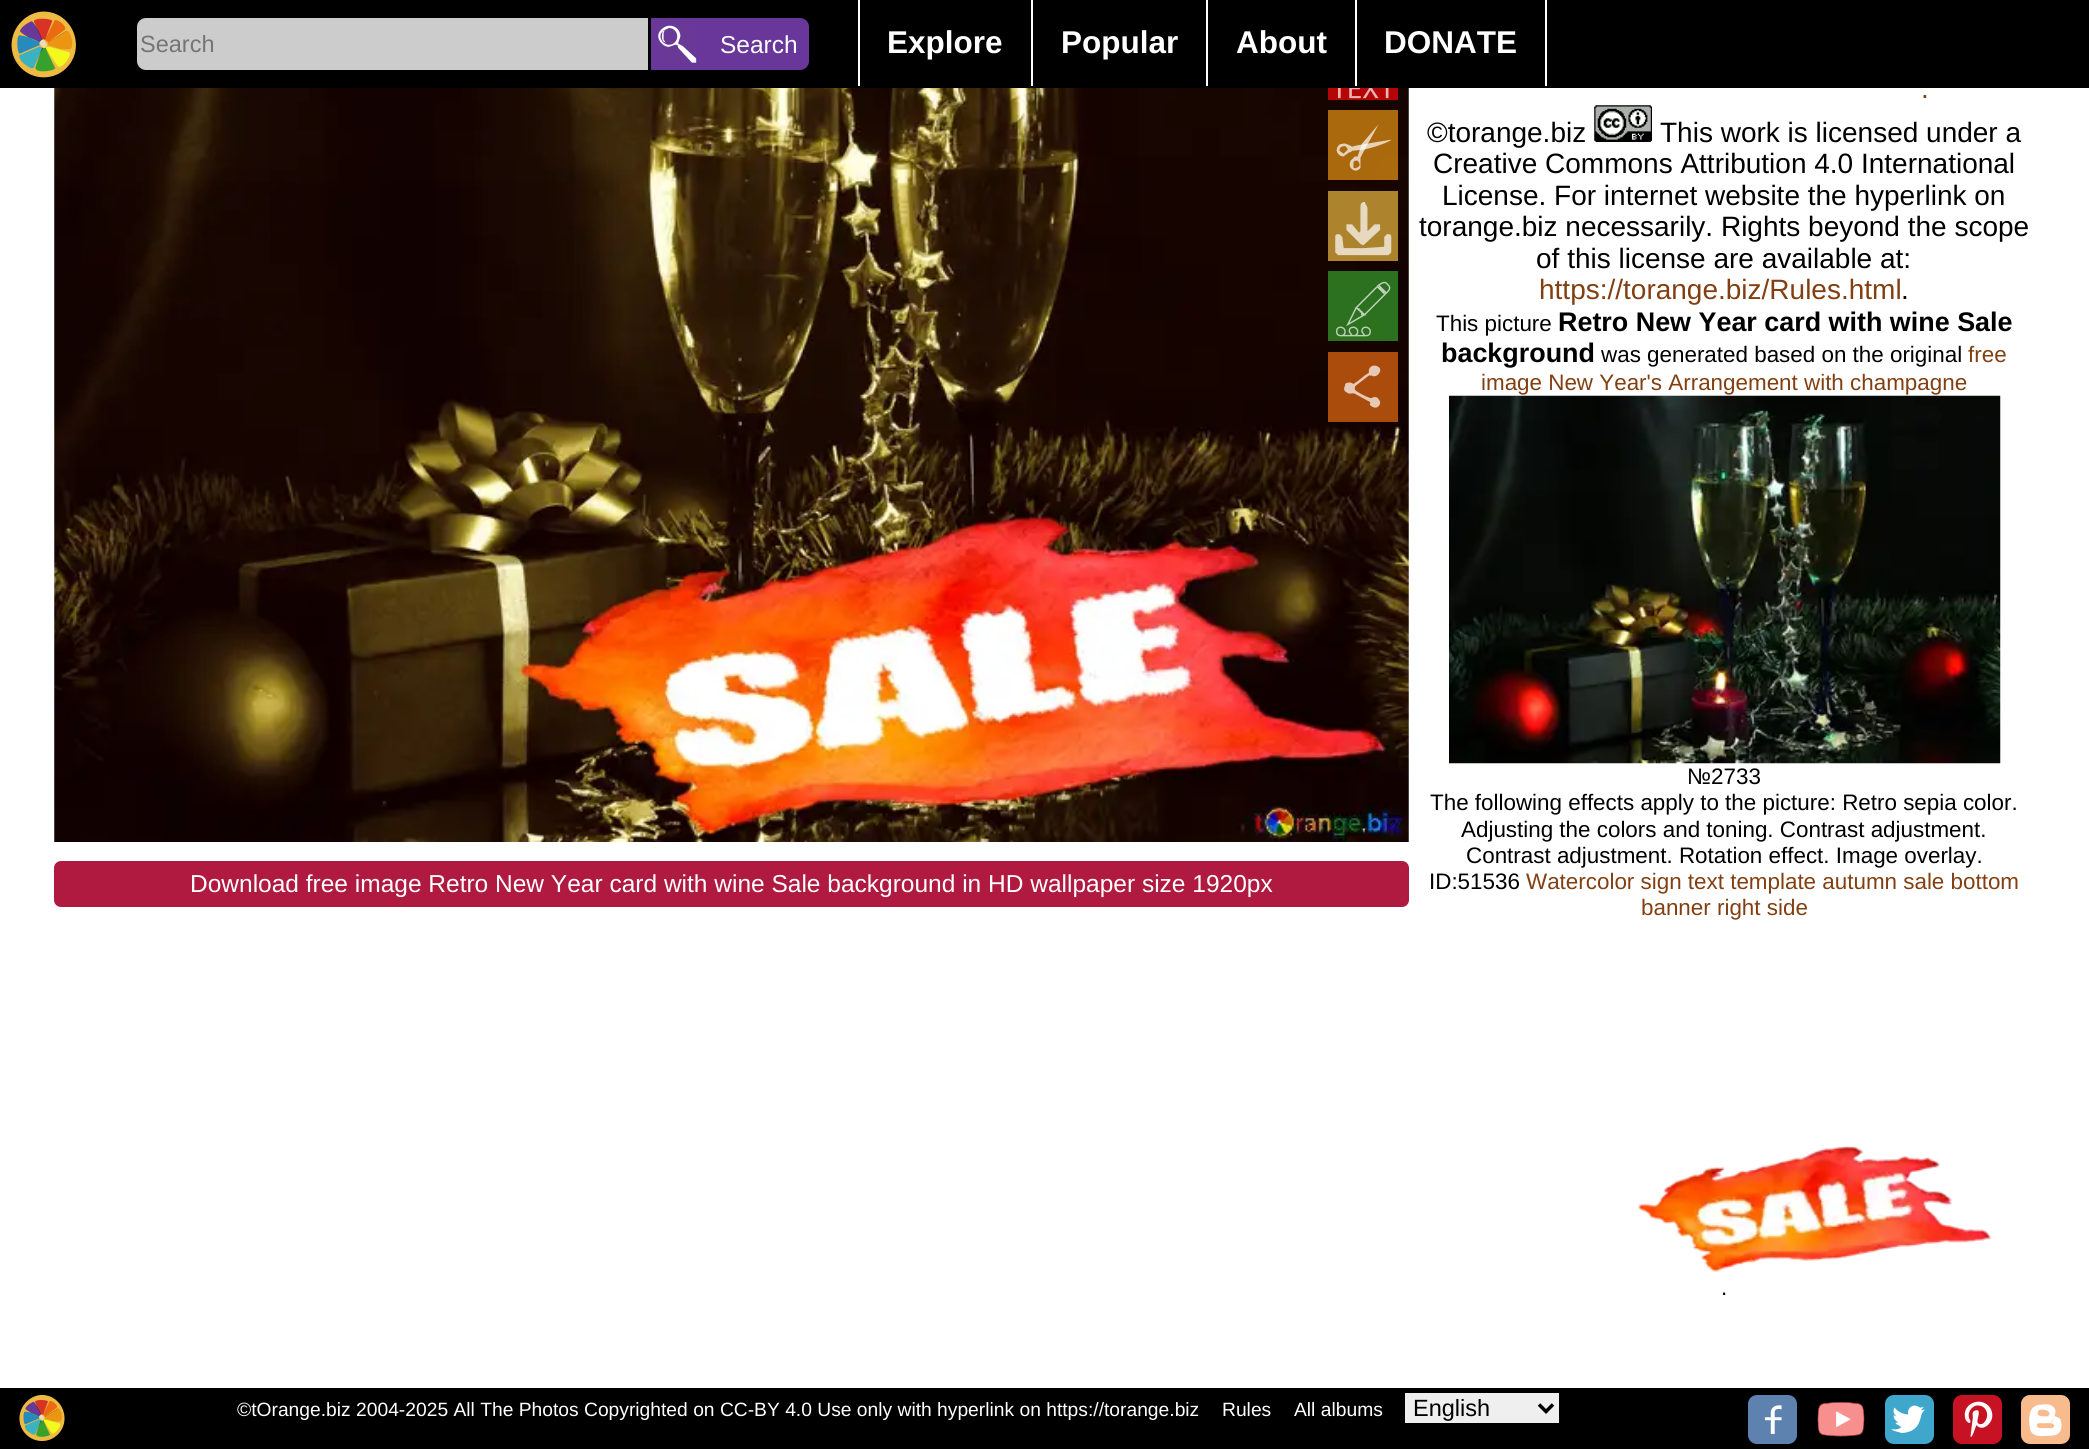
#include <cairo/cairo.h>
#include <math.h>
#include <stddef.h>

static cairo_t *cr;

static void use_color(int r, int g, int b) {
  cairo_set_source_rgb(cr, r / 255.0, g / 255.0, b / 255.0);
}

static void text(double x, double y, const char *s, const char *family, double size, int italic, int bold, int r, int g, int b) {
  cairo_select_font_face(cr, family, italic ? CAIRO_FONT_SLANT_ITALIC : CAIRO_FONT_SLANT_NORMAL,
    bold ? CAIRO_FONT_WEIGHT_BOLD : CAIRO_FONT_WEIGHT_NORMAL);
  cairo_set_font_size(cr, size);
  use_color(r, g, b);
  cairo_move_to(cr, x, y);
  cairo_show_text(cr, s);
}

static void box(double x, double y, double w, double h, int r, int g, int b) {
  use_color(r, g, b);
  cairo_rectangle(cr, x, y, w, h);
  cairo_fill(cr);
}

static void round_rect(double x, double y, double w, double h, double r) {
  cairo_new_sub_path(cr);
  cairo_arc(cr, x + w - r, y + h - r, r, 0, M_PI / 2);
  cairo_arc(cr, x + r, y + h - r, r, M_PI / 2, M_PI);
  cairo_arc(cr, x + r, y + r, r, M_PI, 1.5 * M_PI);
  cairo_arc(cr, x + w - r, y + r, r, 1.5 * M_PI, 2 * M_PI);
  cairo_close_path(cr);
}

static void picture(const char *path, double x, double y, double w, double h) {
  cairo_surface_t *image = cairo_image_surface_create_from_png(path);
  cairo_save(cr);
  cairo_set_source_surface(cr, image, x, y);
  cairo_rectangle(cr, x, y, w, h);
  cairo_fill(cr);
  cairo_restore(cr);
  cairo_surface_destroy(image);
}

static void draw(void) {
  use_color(255, 255, 255);
  cairo_paint(cr);
  box(0, 0, 2089, 88, 0, 0, 0);
  picture("img_01.png", 11, 11, 65, 67);
  use_color(204, 204, 204);
  cairo_new_path(cr);
  cairo_move_to(cr, 146, 18);
  cairo_line_to(cr, 648, 18);
  cairo_line_to(cr, 648, 70);
  cairo_line_to(cr, 146, 70);
  cairo_curve_to(cr, 141, 70, 137, 66, 137, 61);
  cairo_line_to(cr, 137, 27);
  cairo_curve_to(cr, 137, 22, 141, 18, 146, 18);
  cairo_close_path(cr);
  cairo_fill(cr);
  use_color(105, 54, 153);
  cairo_new_path(cr);
  cairo_move_to(cr, 651, 18);
  cairo_line_to(cr, 800, 18);
  cairo_curve_to(cr, 805, 18, 809, 22, 809, 27);
  cairo_line_to(cr, 809, 61);
  cairo_curve_to(cr, 809, 66, 805, 70, 800, 70);
  cairo_line_to(cr, 651, 70);
  cairo_close_path(cr);
  cairo_fill(cr);
  picture("img_02.png", 658, 25, 39, 38);
  box(858, 0, 2, 86, 255, 255, 255);
  box(1031, 0, 2, 86, 255, 255, 255);
  box(1206, 0, 2, 86, 255, 255, 255);
  box(1545, 0, 2, 86, 255, 255, 255);
  box(1355, 0, 2, 86, 255, 255, 255);
  picture("img_03.png", 54, 88, 1355, 754);
  picture("img_04.png", 1328, 88, 70, 12);
  picture("img_05.png", 1328, 110, 70, 70);
  picture("img_06.png", 1328, 191, 70, 70);
  picture("img_07.png", 1328, 271, 70, 70);
  picture("img_08.png", 1328, 352, 70, 70);
  use_color(176, 26, 64);
  round_rect(54, 861, 1355, 46, 7);
  cairo_fill(cr);
  picture("img_09.png", 1594, 105, 58, 37);
  picture("img_10.png", 1449, 395, 552, 369);
  picture("img_11.png", 1638, 1145, 354, 127);
  box(0, 1388, 2089, 61, 0, 0, 0);
  picture("img_12.png", 19, 1395, 46, 46);
  box(1405, 1393, 154, 30, 239, 239, 239);
  cairo_new_path(cr);
  cairo_move_to(cr, 1539, 1404.5);
  cairo_line_to(cr, 1546, 1411.5);
  cairo_line_to(cr, 1553, 1404.5);
  use_color(0, 0, 0);
  cairo_set_line_width(cr, 3.5);
  cairo_stroke(cr);
  picture("img_13.png", 1748, 1395, 49, 49);
  picture("img_14.png", 1817, 1402, 48, 35);
  picture("img_15.png", 1885, 1395, 49, 49);
  picture("img_16.png", 1953, 1395, 49, 49);
  picture("img_17.png", 2021, 1395, 49, 49);
  text(140, 52, "Search", "Liberation Sans", 23.5, 0, 0, 117, 117, 117);
  text(720, 53, "Search", "Liberation Sans", 24.5, 0, 0, 255, 255, 255);
  text(887, 53, "Explore", "Liberation Sans", 31.5, 0, 1, 255, 255, 255);
  text(1061, 53, "Popular", "Liberation Sans", 31.5, 0, 1, 255, 255, 255);
  text(1236, 53, "About", "Liberation Sans", 31.5, 0, 1, 255, 255, 255);
  text(1384, 53, "DONATE", "Liberation Sans", 31.5, 0, 1, 255, 255, 255);
  text(190, 892, "Download free image Retro New Year card with wine Sale background in HD wallpaper size 1920px", "Liberation Sans", 24.5, 0, 0, 255, 255, 255);
  text(1921, 98, ".", "Liberation Sans", 28, 0, 0, 130, 63, 17);
  text(1427, 142, "©torange.biz", "Liberation Sans", 28, 0, 0, 0, 0, 0);
  text(1660, 142, "This work is licensed under a", "Liberation Sans", 28, 0, 0, 0, 0, 0);
  text(1433, 173, "Creative Commons Attribution 4.0 International", "Liberation Sans", 28, 0, 0, 0, 0, 0);
  text(1442, 205, "License. For internet website the hyperlink on", "Liberation Sans", 28, 0, 0, 0, 0, 0);
  text(1419, 236, "torange.biz necessarily. Rights beyond the scope", "Liberation Sans", 28, 0, 0, 0, 0, 0);
  text(1536, 268, "of this license are available at:", "Liberation Sans", 28, 0, 0, 0, 0, 0);
  text(1539, 299, "https://torange.biz/Rules.html", "Liberation Sans", 28, 0, 0, 130, 63, 17);
  text(1901, 299, ".", "Liberation Sans", 28, 0, 0, 0, 0, 0);
  text(1436, 331, "This picture", "Liberation Sans", 22.4, 0, 0, 0, 0, 0);
  text(1558, 331, "Retro New Year card with wine Sale", "Liberation Sans", 26.9, 0, 1, 0, 0, 0);
  text(1441, 362, "background", "Liberation Sans", 26.9, 0, 1, 0, 0, 0);
  text(1968, 362, "free", "Liberation Sans", 22.4, 0, 0, 130, 63, 17);
  text(1481, 390, "image New Year's Arrangement with champagne", "Liberation Sans", 22.4, 0, 0, 130, 63, 17);
  text(1601, 362, "was generated based on the original", "Liberation Sans", 22.4, 0, 0, 0, 0, 0);
  text(1687, 784, "№2733", "Liberation Sans", 22.4, 0, 0, 0, 0, 0);
  text(1430, 810, "The following effects apply to the picture: Retro sepia color.", "Liberation Sans", 22.4, 0, 0, 0, 0, 0);
  text(1461, 837, "Adjusting the colors and toning. Contrast adjustment.", "Liberation Sans", 22.4, 0, 0, 0, 0, 0);
  text(1466, 863, "Contrast adjustment. Rotation effect. Image overlay.", "Liberation Sans", 22.4, 0, 0, 0, 0, 0);
  text(1429, 889, "ID:51536", "Liberation Sans", 22.4, 0, 0, 0, 0, 0);
  text(1526, 889, "Watercolor sign text template autumn sale bottom", "Liberation Sans", 22.4, 0, 0, 130, 63, 17);
  text(1641, 915, "banner right side", "Liberation Sans", 22.4, 0, 0, 130, 63, 17);
  text(1721, 1295, ".", "Liberation Sans", 22.4, 0, 0, 0, 0, 0);
  text(237, 1416, "©tOrange.biz 2004-2025 All The Photos Copyrighted on CC-BY 4.0 Use only with hyperlink on https://torange.biz", "Liberation Sans", 19.25, 0, 0, 255, 255, 255);
  text(1222, 1416, "Rules", "Liberation Sans", 19.25, 0, 0, 255, 255, 255);
  text(1294, 1416, "All albums", "Liberation Sans", 19.25, 0, 0, 255, 255, 255);
  text(1413, 1416, "English", "Liberation Sans", 23.5, 0, 0, 0, 0, 0);
}

int main(void) {
  cairo_surface_t *surface = cairo_image_surface_create(CAIRO_FORMAT_RGB24, 2089, 1449);
  cr = cairo_create(surface);
  cairo_font_options_t *options = cairo_font_options_create();
  cairo_font_options_set_hint_metrics(options, CAIRO_HINT_METRICS_OFF);
  cairo_font_options_set_hint_style(options, CAIRO_HINT_STYLE_NONE);
  cairo_set_font_options(cr, options);
  cairo_set_miter_limit(cr, 4);
  draw();
  cairo_surface_write_to_png(surface, "out.png");
  cairo_font_options_destroy(options);
  cairo_destroy(cr);
  cairo_surface_destroy(surface);
  return 0;
}
